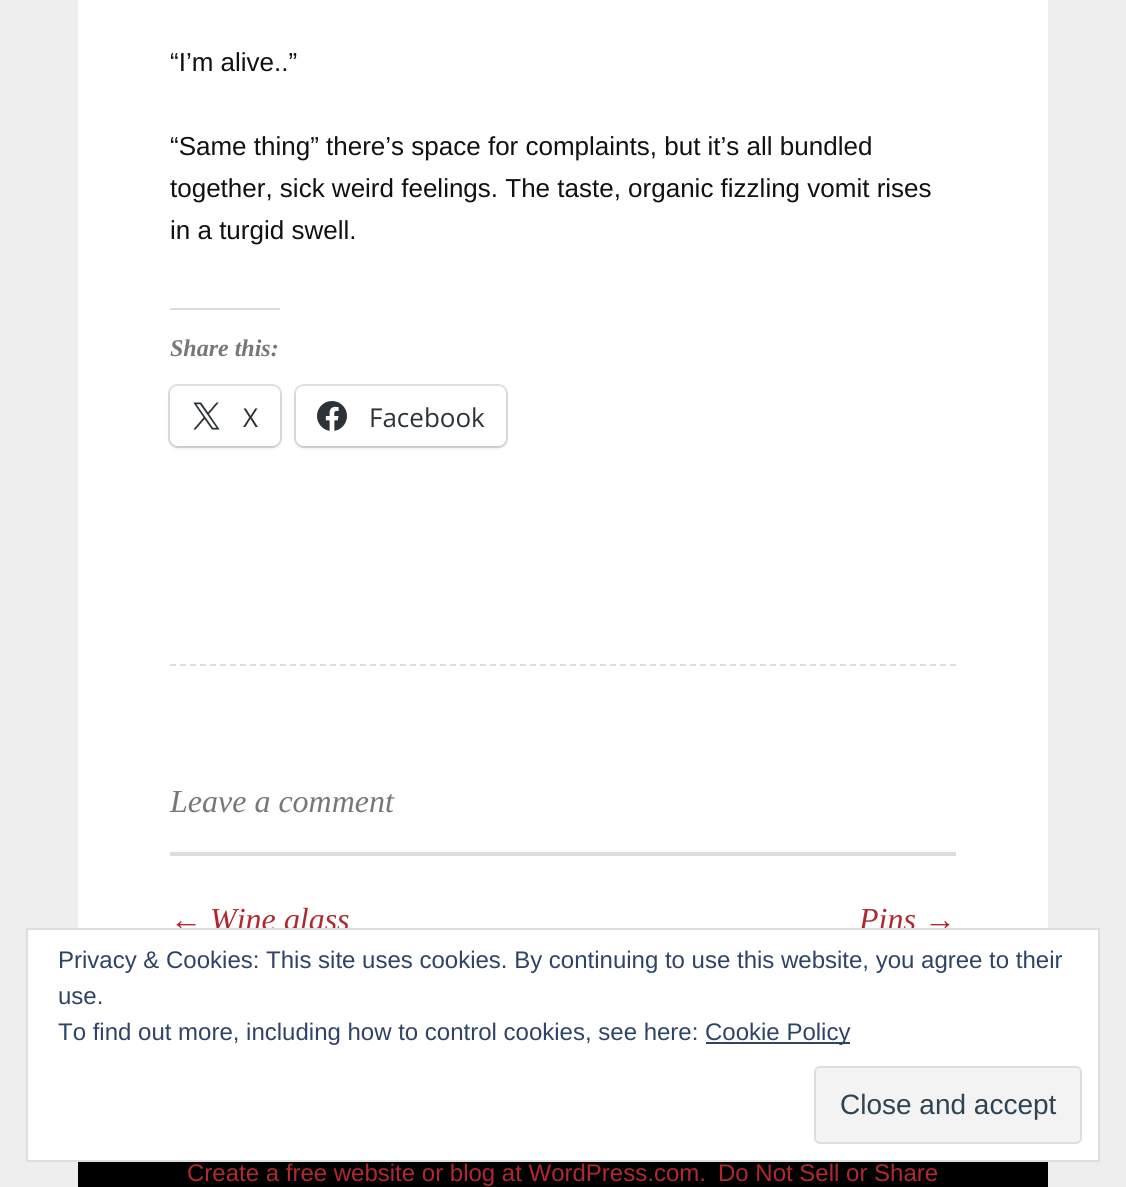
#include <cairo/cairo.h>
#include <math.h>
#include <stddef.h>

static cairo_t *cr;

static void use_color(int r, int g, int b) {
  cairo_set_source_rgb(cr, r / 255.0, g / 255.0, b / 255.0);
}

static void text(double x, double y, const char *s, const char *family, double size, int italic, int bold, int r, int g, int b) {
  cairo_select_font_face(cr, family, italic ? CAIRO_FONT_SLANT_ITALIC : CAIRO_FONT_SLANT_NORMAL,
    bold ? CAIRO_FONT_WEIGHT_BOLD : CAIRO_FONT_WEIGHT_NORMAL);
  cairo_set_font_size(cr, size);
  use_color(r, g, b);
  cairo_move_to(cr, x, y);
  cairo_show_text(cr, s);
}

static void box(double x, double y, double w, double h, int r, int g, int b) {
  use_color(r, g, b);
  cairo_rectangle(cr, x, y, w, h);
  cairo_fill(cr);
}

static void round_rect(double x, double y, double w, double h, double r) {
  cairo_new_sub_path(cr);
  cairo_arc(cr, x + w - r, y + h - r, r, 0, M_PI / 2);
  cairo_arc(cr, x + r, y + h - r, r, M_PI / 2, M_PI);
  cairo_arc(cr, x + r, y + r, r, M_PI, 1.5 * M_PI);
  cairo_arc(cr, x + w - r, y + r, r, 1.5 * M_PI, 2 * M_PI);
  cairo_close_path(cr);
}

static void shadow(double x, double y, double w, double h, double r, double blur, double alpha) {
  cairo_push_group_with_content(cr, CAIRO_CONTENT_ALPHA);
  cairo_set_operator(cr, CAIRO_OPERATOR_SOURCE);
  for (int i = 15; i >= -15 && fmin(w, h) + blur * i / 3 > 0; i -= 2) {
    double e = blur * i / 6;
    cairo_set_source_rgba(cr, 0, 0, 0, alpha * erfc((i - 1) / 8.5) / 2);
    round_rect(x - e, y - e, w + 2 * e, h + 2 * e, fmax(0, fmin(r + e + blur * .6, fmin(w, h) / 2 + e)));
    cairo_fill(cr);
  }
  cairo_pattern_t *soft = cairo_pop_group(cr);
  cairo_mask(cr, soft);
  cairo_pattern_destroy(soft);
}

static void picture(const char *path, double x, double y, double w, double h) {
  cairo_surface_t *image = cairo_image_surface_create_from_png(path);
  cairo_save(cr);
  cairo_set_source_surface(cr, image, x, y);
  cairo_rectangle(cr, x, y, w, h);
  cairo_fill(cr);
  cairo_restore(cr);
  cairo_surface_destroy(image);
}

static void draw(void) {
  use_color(238, 238, 238);
  cairo_paint(cr);
  box(78, 0, 970, 928, 255, 255, 255);
  box(170, 308, 110, 2, 220, 220, 222);
  round_rect(169, 385, 112, 62, 9);
  use_color(224, 224, 224);
  cairo_stroke(cr);
  use_color(0, 0, 0);
  shadow(170, 388, 110, 60, 8, 2, 0.12);
  use_color(255, 255, 255);
  round_rect(170, 386, 110, 60, 8);
  cairo_fill(cr);
  picture("img_01.png", 193, 402, 27, 28);
  round_rect(295, 385, 212, 62, 9);
  use_color(224, 224, 224);
  cairo_stroke(cr);
  use_color(0, 0, 0);
  shadow(296, 388, 210, 60, 8, 2, 0.12);
  use_color(255, 255, 255);
  round_rect(296, 386, 210, 60, 8);
  cairo_fill(cr);
  picture("img_02.png", 317, 401, 30, 30);
  cairo_new_path(cr);
  cairo_move_to(cr, 170, 665);
  cairo_line_to(cr, 956, 665);
  use_color(221, 221, 221);
  cairo_set_dash(cr, (double[]){6, 4}, 2, 0);
  cairo_stroke(cr);
  box(170, 852, 786, 4, 220, 220, 222);
  box(78, 1162, 970, 25, 0, 0, 0);
  text(170, 71, "“I’m alive..”", "Liberation Sans", 26, 0, 0, 17, 17, 17);
  text(170, 155, "“Same thing” there’s space for complaints, but it’s all bundled", "Liberation Sans", 26, 0, 0, 17, 17, 17);
  text(170, 197, "together, sick weird feelings. The taste, organic fizzling vomit rises", "Liberation Sans", 26, 0, 0, 17, 17, 17);
  text(170, 239, "in a turgid swell.", "Liberation Sans", 26, 0, 0, 17, 17, 17);
  text(170, 356, "Share this:", "Liberation Serif", 24, 1, 1, 119, 119, 119);
  text(243, 427, "X", "Open Sans", 26, 0, 0, 44, 51, 56);
  text(369, 427, "Facebook", "Open Sans", 26, 0, 0, 44, 51, 56);
  text(170, 812, "Leave a comment", "Liberation Serif", 32, 1, 0, 119, 119, 119);
  text(170, 930, "← Wine glass", "Liberation Serif", 32, 1, 0, 177, 41, 48);
  text(859, 930, "Pins →", "Liberation Serif", 32, 1, 0, 177, 41, 48);
  text(187, 1181, "Create a free website or blog at WordPress.com.", "Liberation Sans", 24, 0, 0, 177, 41, 48);
  text(718, 1181, "Do Not Sell or Share", "Liberation Sans", 24, 0, 0, 177, 41, 48);
  use_color(255, 255, 255);
  cairo_rectangle(cr, 27, 929, 1072, 232);
  cairo_fill_preserve(cr);
  use_color(222, 222, 222);
  cairo_set_dash(cr, NULL, 0, 0);
  cairo_stroke(cr);
  text(58, 968, "Privacy & Cookies: This site uses cookies. By continuing to use this website, you agree to their", "Liberation Sans", 24, 0, 0, 46, 68, 103);
  text(58, 1004, "use.", "Liberation Sans", 24, 0, 0, 46, 68, 103);
  text(58, 1040, "To find out more, including how to control cookies, see here:", "Liberation Sans", 24, 0, 0, 46, 68, 103);
  box(706, 1042, 144, 2, 46, 68, 103);
  text(705, 1040, "Cookie Policy", "Liberation Sans", 24, 0, 0, 46, 68, 103);
  use_color(243, 243, 243);
  round_rect(815, 1067, 266, 76, 5);
  cairo_fill_preserve(cr);
  use_color(222, 222, 222);
  cairo_stroke(cr);
  text(840, 1114, "Close and accept", "Liberation Sans", 28, 0, 0, 46, 68, 83);
}

int main(void) {
  cairo_surface_t *surface = cairo_image_surface_create(CAIRO_FORMAT_RGB24, 1126, 1187);
  cr = cairo_create(surface);
  cairo_font_options_t *options = cairo_font_options_create();
  cairo_font_options_set_hint_metrics(options, CAIRO_HINT_METRICS_OFF);
  cairo_font_options_set_hint_style(options, CAIRO_HINT_STYLE_NONE);
  cairo_set_font_options(cr, options);
  cairo_set_miter_limit(cr, 4);
  draw();
  cairo_surface_write_to_png(surface, "out.png");
  cairo_font_options_destroy(options);
  cairo_destroy(cr);
  cairo_surface_destroy(surface);
  return 0;
}
